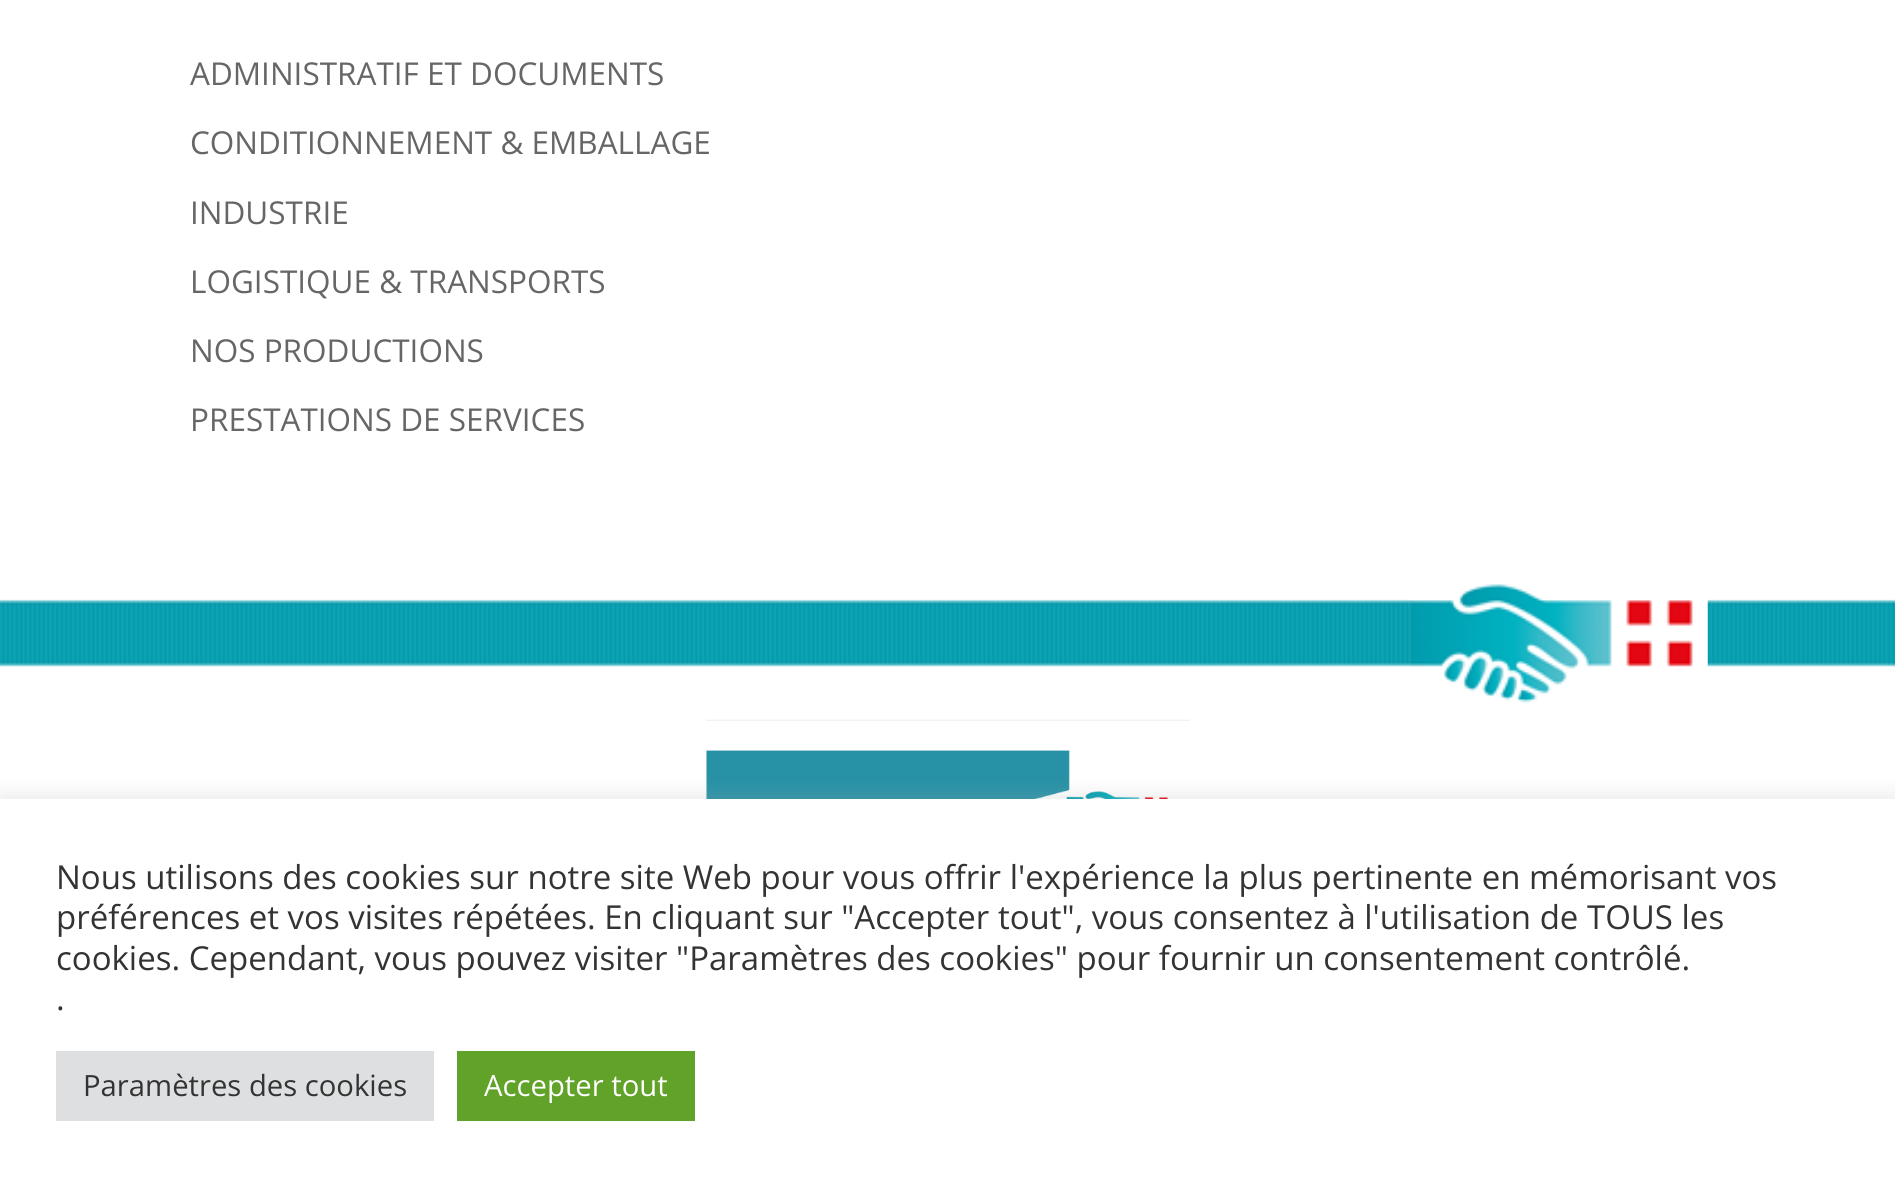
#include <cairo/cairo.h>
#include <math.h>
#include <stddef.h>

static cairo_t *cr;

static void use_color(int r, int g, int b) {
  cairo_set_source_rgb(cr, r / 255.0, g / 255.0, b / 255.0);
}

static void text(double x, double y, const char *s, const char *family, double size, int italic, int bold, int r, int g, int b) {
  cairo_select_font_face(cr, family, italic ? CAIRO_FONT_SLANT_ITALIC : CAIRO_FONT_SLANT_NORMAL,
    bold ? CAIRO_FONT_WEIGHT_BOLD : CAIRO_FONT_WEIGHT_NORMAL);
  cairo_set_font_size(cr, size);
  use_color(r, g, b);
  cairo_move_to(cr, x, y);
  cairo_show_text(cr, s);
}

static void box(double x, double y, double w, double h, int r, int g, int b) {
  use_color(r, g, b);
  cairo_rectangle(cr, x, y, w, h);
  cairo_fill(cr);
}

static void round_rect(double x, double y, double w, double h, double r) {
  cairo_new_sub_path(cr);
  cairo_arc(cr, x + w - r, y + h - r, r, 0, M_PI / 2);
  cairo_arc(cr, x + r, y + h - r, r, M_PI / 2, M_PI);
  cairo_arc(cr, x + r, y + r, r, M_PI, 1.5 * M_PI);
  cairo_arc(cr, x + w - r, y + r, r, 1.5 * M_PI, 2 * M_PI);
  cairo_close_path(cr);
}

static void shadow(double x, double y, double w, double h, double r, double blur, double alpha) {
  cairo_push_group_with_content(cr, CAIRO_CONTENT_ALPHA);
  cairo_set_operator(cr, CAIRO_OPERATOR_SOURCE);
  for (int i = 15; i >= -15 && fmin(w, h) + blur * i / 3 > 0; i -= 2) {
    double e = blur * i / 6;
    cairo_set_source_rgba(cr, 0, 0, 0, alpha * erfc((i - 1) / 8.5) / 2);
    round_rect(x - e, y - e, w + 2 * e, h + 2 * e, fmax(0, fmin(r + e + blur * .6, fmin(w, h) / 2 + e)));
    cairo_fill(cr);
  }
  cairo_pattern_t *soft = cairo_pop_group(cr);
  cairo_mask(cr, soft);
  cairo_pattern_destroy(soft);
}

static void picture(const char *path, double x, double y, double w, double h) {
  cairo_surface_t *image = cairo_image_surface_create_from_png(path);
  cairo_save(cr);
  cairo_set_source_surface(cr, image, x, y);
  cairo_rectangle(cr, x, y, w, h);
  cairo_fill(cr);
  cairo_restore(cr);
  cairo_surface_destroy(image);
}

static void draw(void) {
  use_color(255, 255, 255);
  cairo_paint(cr);
  picture("img_01.png", 0, 599, 1895, 68);
  picture("img_02.png", 1408, 584, 300, 119);
  picture("img_03.png", 706, 719, 484, 80);
  use_color(172, 171, 171);
  shadow(0, 797, 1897, 389, 0, 11, 0.3);
  box(0, 799, 1895, 387, 255, 255, 255);
  box(56, 1051, 378, 70, 222, 223, 224);
  box(457, 1051, 238, 70, 97, 162, 41);
  text(190, 85, "ADMINISTRATIF ET DOCUMENTS", "Open Sans", 31.5, 0, 0, 102, 102, 102);
  text(190, 154, "CONDITIONNEMENT & EMBALLAGE", "Open Sans", 31.5, 0, 0, 102, 102, 102);
  text(190, 224, "INDUSTRIE", "Open Sans", 31.5, 0, 0, 102, 102, 102);
  text(190, 293, "LOGISTIQUE & TRANSPORTS", "Open Sans", 31.5, 0, 0, 102, 102, 102);
  text(190, 362, "NOS PRODUCTIONS", "Open Sans", 31.5, 0, 0, 102, 102, 102);
  text(190, 431, "PRESTATIONS DE SERVICES", "Open Sans", 31.5, 0, 0, 102, 102, 102);
  text(56, 889, "Nous utilisons des cookies sur notre site Web pour vous offrir l'expérience la plus pertinente en mémorisant vos", "Open Sans", 33, 0, 0, 51, 51, 51);
  text(56, 929, "préférences et vos visites répétées. En cliquant sur \"Accepter tout\", vous consentez à l'utilisation de TOUS les", "Open Sans", 33, 0, 0, 51, 51, 51);
  text(56, 970, "cookies. Cependant, vous pouvez visiter \"Paramètres des cookies\" pour fournir un consentement contrôlé.", "Open Sans", 33, 0, 0, 51, 51, 51);
  text(56, 1010, ".", "Open Sans", 33, 0, 0, 51, 51, 51);
  text(83, 1096, "Paramètres des cookies", "Open Sans", 29.25, 0, 0, 51, 51, 51);
  text(484, 1096, "Accepter tout", "Open Sans", 29.25, 0, 0, 255, 255, 255);
}

int main(void) {
  cairo_surface_t *surface = cairo_image_surface_create(CAIRO_FORMAT_RGB24, 1895, 1186);
  cr = cairo_create(surface);
  cairo_font_options_t *options = cairo_font_options_create();
  cairo_font_options_set_hint_metrics(options, CAIRO_HINT_METRICS_OFF);
  cairo_font_options_set_hint_style(options, CAIRO_HINT_STYLE_NONE);
  cairo_set_font_options(cr, options);
  cairo_set_miter_limit(cr, 4);
  draw();
  cairo_surface_write_to_png(surface, "out.png");
  cairo_font_options_destroy(options);
  cairo_destroy(cr);
  cairo_surface_destroy(surface);
  return 0;
}
